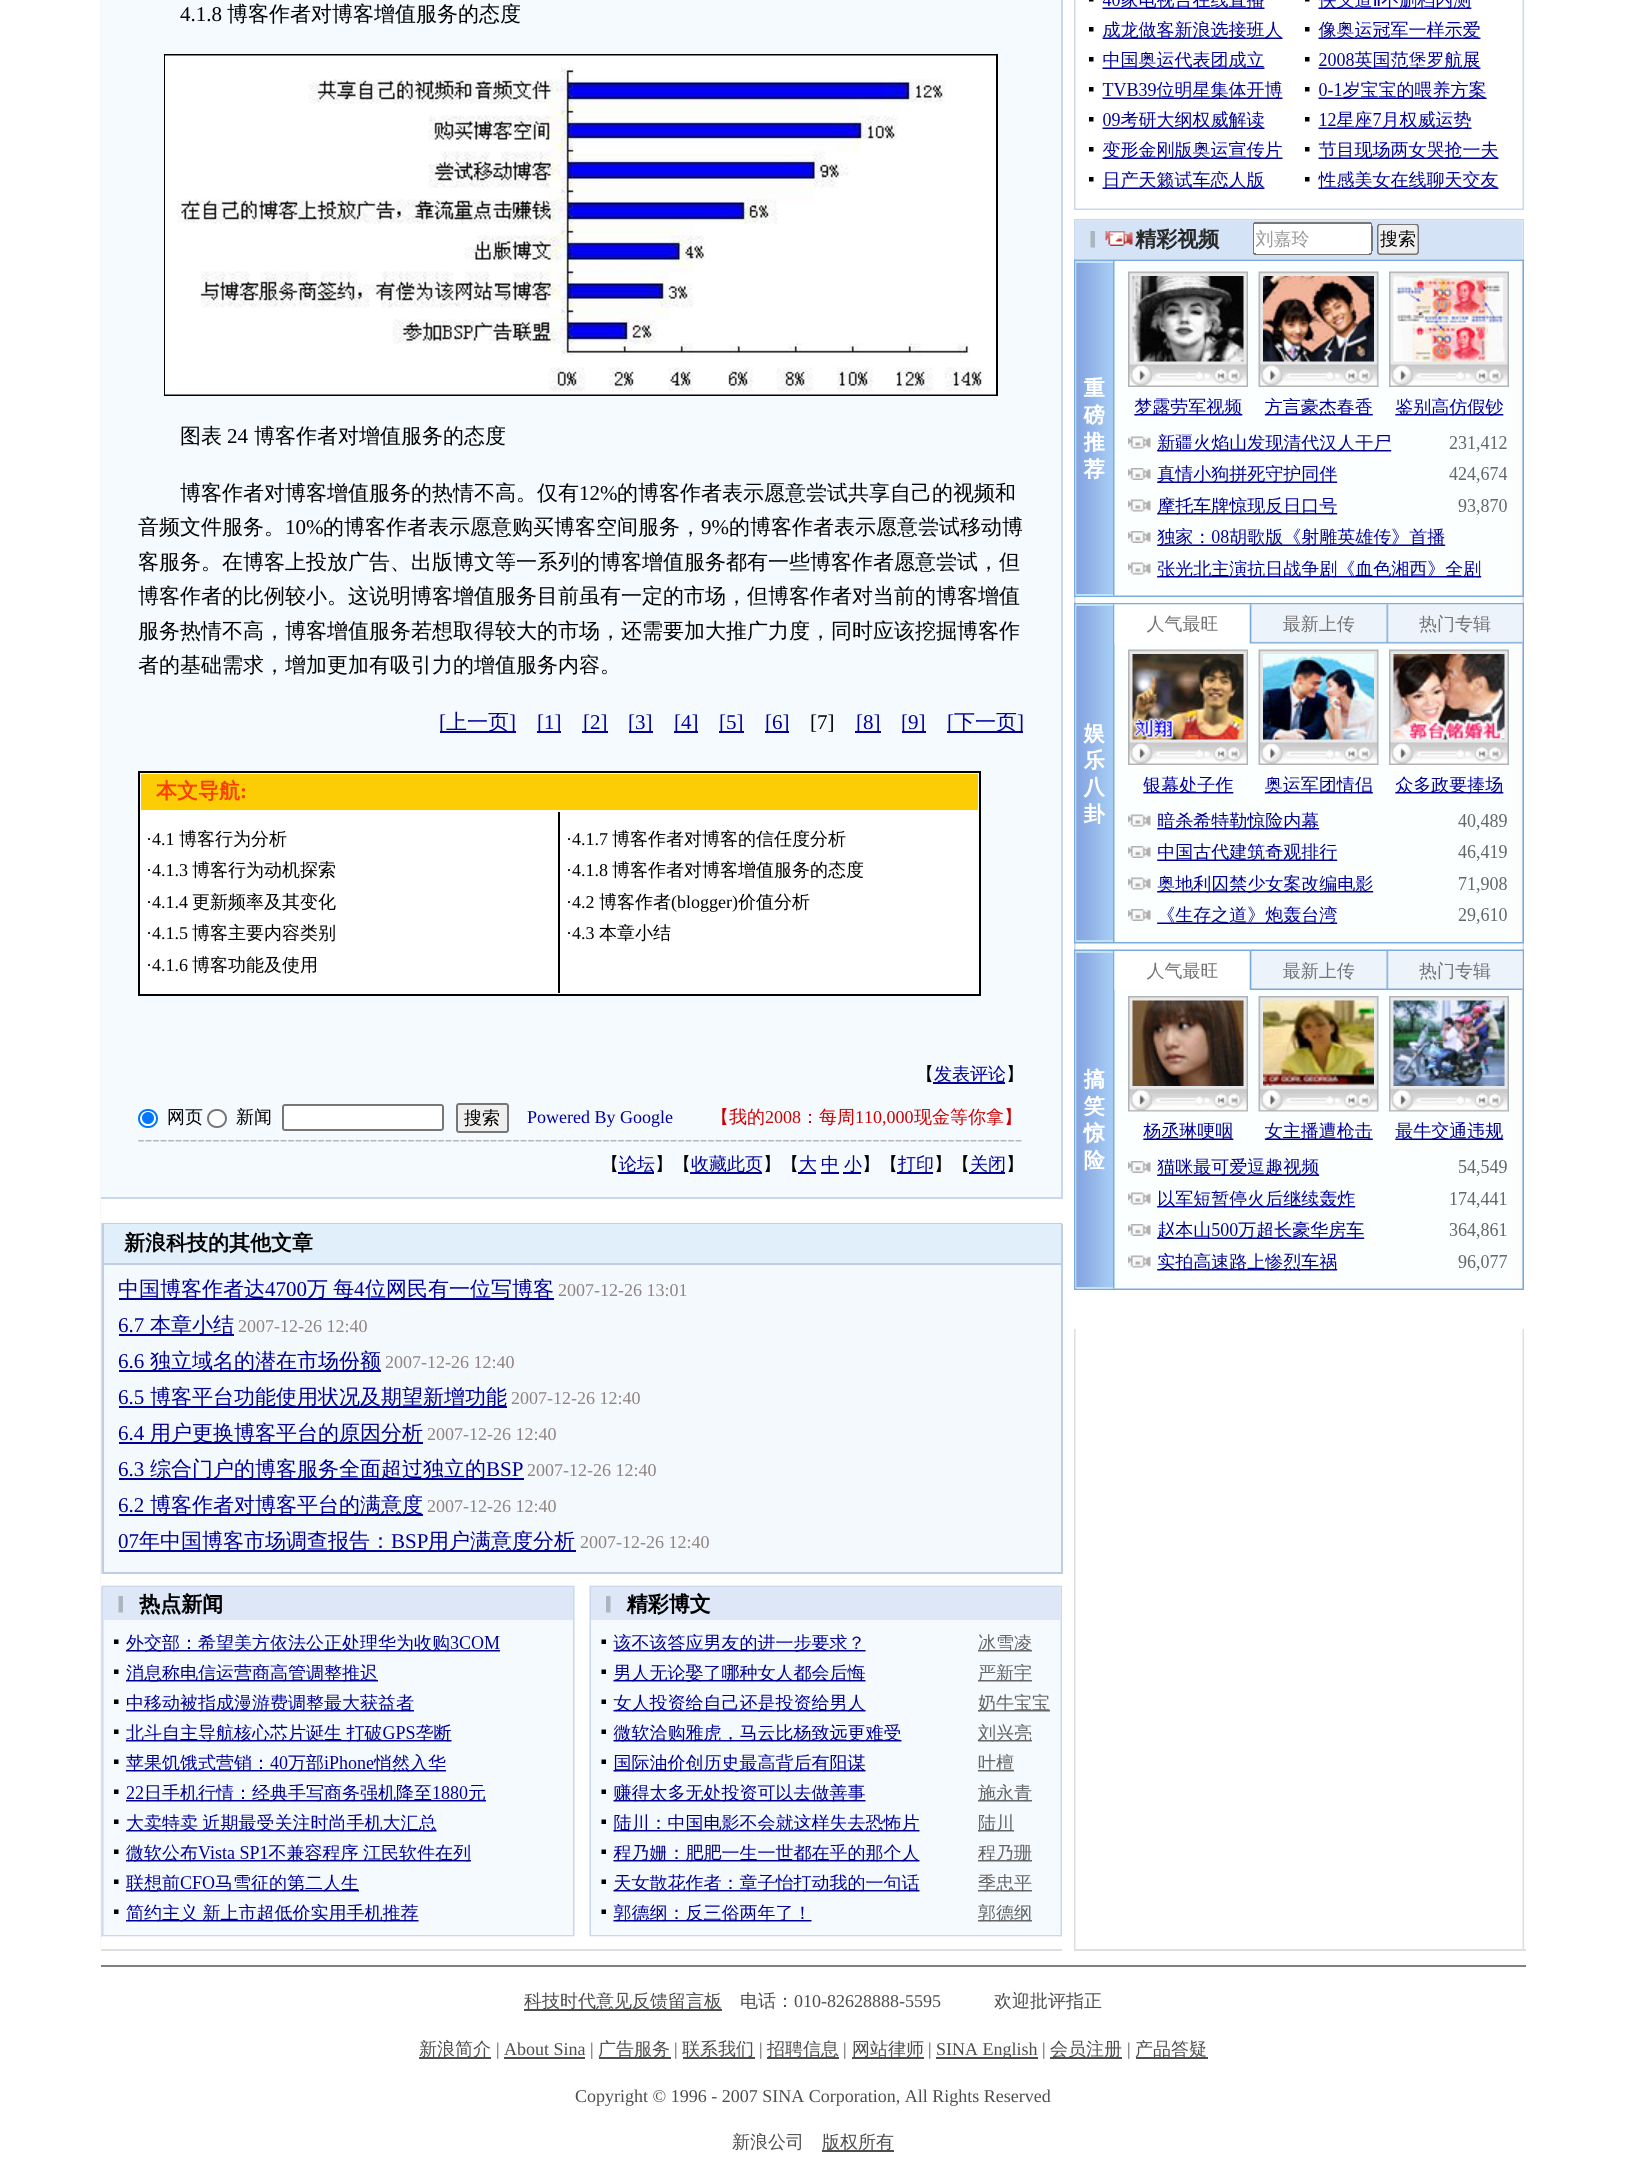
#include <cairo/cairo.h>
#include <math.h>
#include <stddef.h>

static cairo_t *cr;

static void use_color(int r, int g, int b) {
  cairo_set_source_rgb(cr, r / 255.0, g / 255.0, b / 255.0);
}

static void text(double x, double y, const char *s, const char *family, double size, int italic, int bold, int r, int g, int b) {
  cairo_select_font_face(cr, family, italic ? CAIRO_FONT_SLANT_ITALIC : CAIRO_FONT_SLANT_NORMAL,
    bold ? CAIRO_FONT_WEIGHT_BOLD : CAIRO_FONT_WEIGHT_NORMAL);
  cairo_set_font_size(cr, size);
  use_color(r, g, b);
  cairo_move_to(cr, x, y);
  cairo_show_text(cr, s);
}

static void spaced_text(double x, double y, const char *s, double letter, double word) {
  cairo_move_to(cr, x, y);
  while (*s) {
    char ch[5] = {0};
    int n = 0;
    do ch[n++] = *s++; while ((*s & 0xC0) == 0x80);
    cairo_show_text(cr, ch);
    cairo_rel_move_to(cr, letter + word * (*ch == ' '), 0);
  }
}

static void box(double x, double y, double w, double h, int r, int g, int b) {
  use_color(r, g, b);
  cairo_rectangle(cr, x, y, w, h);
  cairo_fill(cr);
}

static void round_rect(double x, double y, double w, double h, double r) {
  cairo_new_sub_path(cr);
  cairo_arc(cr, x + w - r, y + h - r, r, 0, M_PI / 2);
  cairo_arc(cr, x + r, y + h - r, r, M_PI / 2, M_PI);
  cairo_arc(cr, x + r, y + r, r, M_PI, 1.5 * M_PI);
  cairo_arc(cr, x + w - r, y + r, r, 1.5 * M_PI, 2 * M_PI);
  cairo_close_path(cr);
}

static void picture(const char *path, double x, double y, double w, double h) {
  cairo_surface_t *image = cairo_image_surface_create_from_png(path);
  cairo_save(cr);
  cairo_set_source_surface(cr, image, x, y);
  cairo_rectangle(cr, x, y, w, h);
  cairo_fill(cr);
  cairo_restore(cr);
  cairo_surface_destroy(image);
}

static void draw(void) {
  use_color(255, 255, 255);
  cairo_paint(cr);
  picture("img_01.png", 100, 0, 961, 1950);
  box(101, 1949, 961, 2, 222, 223, 222);
  box(101, 0, 960, 1197, 245, 250, 254);
  box(1061, 0, 2, 1199, 203, 215, 236);
  box(101, 1197, 961, 2, 203, 215, 236);
  cairo_rectangle(cr, 165, 55, 832, 340);
  use_color(0, 0, 0);
  cairo_stroke(cr);
  picture("img_02.png", 165, 55, 831, 340);
  box(440, 731, 76, 2, 0, 0, 153);
  box(537, 731, 24, 2, 0, 0, 153);
  box(582, 731, 26, 2, 0, 0, 153);
  box(629, 731, 24, 2, 0, 0, 153);
  box(674, 731, 24, 2, 0, 0, 153);
  box(719, 731, 25, 2, 0, 0, 153);
  box(765, 731, 24, 2, 0, 0, 153);
  box(855, 731, 26, 2, 0, 0, 153);
  box(902, 731, 24, 2, 0, 0, 153);
  box(947, 731, 76, 2, 0, 0, 153);
  use_color(255, 255, 255);
  cairo_rectangle(cr, 139, 772, 841, 223);
  cairo_fill_preserve(cr);
  use_color(0, 0, 0);
  cairo_stroke(cr);
  box(141, 774, 837, 36, 252, 204, 4);
  box(558, 812, 2, 181, 0, 0, 0);
  box(933, 1082, 72, 2, 0, 0, 153);
  use_color(255, 255, 255);
  round_rect(139, 1110, 18, 17, 8.5);
  cairo_fill_preserve(cr);
  use_color(0, 117, 255);
  cairo_stroke(cr);
  cairo_arc(cr, 148, 1118, 6, 0, 2 * M_PI);
  cairo_fill(cr);
  use_color(255, 255, 255);
  round_rect(208, 1110, 18, 17, 8.5);
  cairo_fill_preserve(cr);
  use_color(118, 118, 118);
  cairo_stroke(cr);
  use_color(255, 255, 255);
  round_rect(283, 1105, 160, 25, 2);
  cairo_fill_preserve(cr);
  use_color(118, 118, 118);
  cairo_stroke(cr);
  use_color(239, 239, 239);
  round_rect(457, 1104, 51, 28, 2);
  cairo_fill_preserve(cr);
  use_color(118, 118, 118);
  cairo_stroke(cr);
  picture("img_03.png", 138, 1140, 885, 2);
  box(618, 1172, 36, 2, 0, 0, 153);
  box(690, 1172, 72, 2, 0, 0, 153);
  box(798, 1172, 18, 2, 0, 0, 153);
  box(821, 1172, 18, 2, 0, 0, 153);
  box(843, 1172, 18, 2, 0, 0, 153);
  box(897, 1172, 36, 2, 0, 0, 153);
  box(969, 1172, 36, 2, 0, 0, 153);
  box(101, 1199, 960, 24, 255, 255, 255);
  box(102, 1223, 960, 1, 190, 206, 230);
  box(102, 1223, 2, 351, 190, 206, 230);
  box(1061, 1224, 2, 350, 190, 206, 230);
  box(104, 1572, 958, 2, 190, 206, 230);
  box(104, 1224, 957, 39, 225, 239, 250);
  box(104, 1263, 957, 2, 190, 206, 230);
  box(104, 1265, 957, 307, 244, 249, 254);
  box(119, 1298, 435, 2, 0, 0, 153);
  box(119, 1334, 115, 2, 0, 0, 153);
  box(119, 1370, 262, 2, 0, 0, 153);
  box(119, 1406, 388, 2, 0, 0, 153);
  box(119, 1442, 304, 2, 0, 0, 153);
  box(119, 1478, 405, 2, 0, 0, 153);
  box(119, 1514, 304, 2, 0, 0, 153);
  box(119, 1550, 457, 2, 0, 0, 153);
  box(101, 1574, 960, 12, 255, 255, 255);
  picture("img_04.png", 102, 1585, 960, 352);
  box(101, 1937, 960, 12, 255, 255, 255);
  picture("img_05.png", 1074, 1329, 450, 620);
  box(1074, 1949, 452, 2, 222, 223, 222);
  picture("img_06.png", 1074, 0, 450, 210);
  picture("img_07.png", 1074, 219, 450, 1071);
  box(101, 1965, 1425, 2, 128, 128, 128);
  box(524, 2009, 198, 2, 77, 77, 77);
  box(419, 2057, 72, 2, 77, 77, 77);
  box(599, 2057, 72, 2, 77, 77, 77);
  box(683, 2057, 72, 2, 77, 77, 77);
  box(767, 2057, 72, 2, 77, 77, 77);
  box(852, 2057, 72, 2, 77, 77, 77);
  box(936, 2057, 102, 2, 77, 77, 77);
  box(1050, 2057, 72, 2, 77, 77, 77);
  box(1136, 2057, 72, 2, 77, 77, 77);
  box(504, 2057, 81, 2, 77, 77, 77);
  box(822, 2150, 72, 2, 77, 77, 77);
  text(180, 21, "4.1.8", "Liberation Serif", 21, 0, 0, 0, 0, 0);
  text(227, 21, "博客作者对博客增值服务的态度", "WenQuanYi Zen Hei Medium", 21, 0, 0, 0, 0, 0);
  text(180, 443, "图表", "WenQuanYi Zen Hei Medium", 21, 0, 0, 0, 0, 0);
  text(227, 443, "24", "Liberation Serif", 21, 0, 0, 0, 0, 0);
  text(254, 443, "博客作者对增值服务的态度", "WenQuanYi Zen Hei Medium", 21, 0, 0, 0, 0, 0);
  text(180, 500, "博客作者对博客增值服务的热情不高。仅有", "WenQuanYi Zen Hei Medium", 21, 0, 0, 0, 0, 0);
  text(579, 500, "12%", "Liberation Serif", 21, 0, 0, 0, 0, 0);
  text(617, 500, "的博客作者表示愿意尝试共享自己的视频和", "WenQuanYi Zen Hei Medium", 21, 0, 0, 0, 0, 0);
  text(138, 534, "音频文件服务。", "WenQuanYi Zen Hei Medium", 21, 0, 0, 0, 0, 0);
  text(285, 534, "10%", "Liberation Serif", 21, 0, 0, 0, 0, 0);
  text(323, 534, "的博客作者表示愿意购买博客空间服务，", "WenQuanYi Zen Hei Medium", 21, 0, 0, 0, 0, 0);
  text(701, 534, "9%", "Liberation Serif", 21, 0, 0, 0, 0, 0);
  text(729, 534, "的博客作者表示愿意尝试移动博", "WenQuanYi Zen Hei Medium", 21, 0, 0, 0, 0, 0);
  text(138, 569, "客服务。在博客上投放广告、出版博文等一系列的博客增值服务都有一些博客作者愿意尝试，但", "WenQuanYi Zen Hei Medium", 21, 0, 0, 0, 0, 0);
  text(138, 603, "博客作者的比例较小。这说明博客增值服务目前虽有一定的市场，但博客作者对当前的博客增值", "WenQuanYi Zen Hei Medium", 21, 0, 0, 0, 0, 0);
  text(138, 638, "服务热情不高，博客增值服务若想取得较大的市场，还需要加大推广力度，同时应该挖掘博客作", "WenQuanYi Zen Hei Medium", 21, 0, 0, 0, 0, 0);
  text(138, 672, "者的基础需求，增加更加有吸引力的增值服务内容。", "WenQuanYi Zen Hei Medium", 21, 0, 0, 0, 0, 0);
  text(439, 729, "[", "Liberation Serif", 21, 0, 0, 0, 0, 153);
  text(446, 729, "上一页", "WenQuanYi Zen Hei Medium", 21, 0, 0, 0, 0, 153);
  text(509, 729, "]", "Liberation Serif", 21, 0, 0, 0, 0, 153);
  text(537, 729, "[1]", "Liberation Serif", 21, 0, 0, 0, 0, 153);
  text(583, 729, "[2]", "Liberation Serif", 21, 0, 0, 0, 0, 153);
  text(628, 729, "[3]", "Liberation Serif", 21, 0, 0, 0, 0, 153);
  text(674, 729, "[4]", "Liberation Serif", 21, 0, 0, 0, 0, 153);
  text(719, 729, "[5]", "Liberation Serif", 21, 0, 0, 0, 0, 153);
  text(765, 729, "[6]", "Liberation Serif", 21, 0, 0, 0, 0, 153);
  text(810, 729, "[7]", "Liberation Serif", 21, 0, 0, 0, 0, 0);
  text(856, 729, "[8]", "Liberation Serif", 21, 0, 0, 0, 0, 153);
  text(901, 729, "[9]", "Liberation Serif", 21, 0, 0, 0, 0, 153);
  text(947, 729, "[", "Liberation Serif", 21, 0, 0, 0, 0, 153);
  text(954, 729, "下一页", "WenQuanYi Zen Hei Medium", 21, 0, 0, 0, 0, 153);
  text(1017, 729, "]", "Liberation Serif", 21, 0, 0, 0, 0, 153);
  text(156, 798, "本文导航", "WenQuanYi Zen Hei", 21, 0, 1, 248, 63, 0);
  text(240, 798, ":", "Liberation Serif", 21, 0, 1, 248, 63, 0);
  text(146, 845, "·4.1", "Liberation Serif", 18, 0, 0, 0, 0, 0);
  text(179, 845, "博客行为分析", "WenQuanYi Zen Hei Medium", 18, 0, 0, 0, 0, 0);
  text(146, 876, "·4.1.3", "Liberation Serif", 18, 0, 0, 0, 0, 0);
  text(192, 876, "博客行为动机探索", "WenQuanYi Zen Hei Medium", 18, 0, 0, 0, 0, 0);
  text(146, 908, "·4.1.4", "Liberation Serif", 18, 0, 0, 0, 0, 0);
  text(192, 908, "更新频率及其变化", "WenQuanYi Zen Hei Medium", 18, 0, 0, 0, 0, 0);
  text(146, 939, "·4.1.5", "Liberation Serif", 18, 0, 0, 0, 0, 0);
  text(192, 939, "博客主要内容类别", "WenQuanYi Zen Hei Medium", 18, 0, 0, 0, 0, 0);
  text(146, 971, "·4.1.6", "Liberation Serif", 18, 0, 0, 0, 0, 0);
  text(192, 971, "博客功能及使用", "WenQuanYi Zen Hei Medium", 18, 0, 0, 0, 0, 0);
  text(566, 845, "·4.1.7", "Liberation Serif", 18, 0, 0, 0, 0, 0);
  text(612, 845, "博客作者对博客的信任度分析", "WenQuanYi Zen Hei Medium", 18, 0, 0, 0, 0, 0);
  text(566, 876, "·4.1.8", "Liberation Serif", 18, 0, 0, 0, 0, 0);
  text(612, 876, "博客作者对博客增值服务的态度", "WenQuanYi Zen Hei Medium", 18, 0, 0, 0, 0, 0);
  text(566, 908, "·4.2", "Liberation Serif", 18, 0, 0, 0, 0, 0);
  text(599, 908, "博客作者", "WenQuanYi Zen Hei Medium", 18, 0, 0, 0, 0, 0);
  text(671, 908, "(blogger)", "Liberation Serif", 18, 0, 0, 0, 0, 0);
  text(738, 908, "价值分析", "WenQuanYi Zen Hei Medium", 18, 0, 0, 0, 0, 0);
  text(566, 939, "·4.3", "Liberation Serif", 18, 0, 0, 0, 0, 0);
  text(599, 939, "本章小结", "WenQuanYi Zen Hei Medium", 18, 0, 0, 0, 0, 0);
  text(916, 1080, "【", "WenQuanYi Zen Hei Medium", 18, 0, 0, 0, 0, 0);
  text(934, 1080, "发表评论", "WenQuanYi Zen Hei Medium", 18, 0, 0, 0, 0, 153);
  text(1006, 1080, "】", "WenQuanYi Zen Hei Medium", 18, 0, 0, 0, 0, 0);
  text(167, 1123, "网页", "WenQuanYi Zen Hei Medium", 18, 0, 0, 0, 0, 0);
  text(236, 1123, "新闻", "WenQuanYi Zen Hei Medium", 18, 0, 0, 0, 0, 0);
  text(464, 1124, "搜索", "WenQuanYi Zen Hei Medium", 18, 0, 0, 0, 0, 0);
  text(527, 1123, "Powered By Google", "Liberation Serif", 18, 0, 0, 0, 0, 153);
  text(711, 1123, "【我的", "WenQuanYi Zen Hei Medium", 18, 0, 0, 204, 0, 0);
  text(765, 1123, "2008", "Liberation Serif", 18, 0, 0, 204, 0, 0);
  text(801, 1123, "：每周", "WenQuanYi Zen Hei Medium", 18, 0, 0, 204, 0, 0);
  text(855, 1123, "110,000", "Liberation Serif", 18, 0, 0, 204, 0, 0);
  text(914, 1123, "现金等你拿】", "WenQuanYi Zen Hei Medium", 18, 0, 0, 204, 0, 0);
  text(601, 1170, "【", "WenQuanYi Zen Hei Medium", 18, 0, 0, 0, 0, 0);
  text(619, 1170, "论坛", "WenQuanYi Zen Hei Medium", 18, 0, 0, 0, 0, 153);
  text(655, 1170, "】【", "WenQuanYi Zen Hei Medium", 18, 0, 0, 0, 0, 0);
  text(691, 1170, "收藏此页", "WenQuanYi Zen Hei Medium", 18, 0, 0, 0, 0, 153);
  text(763, 1170, "】【", "WenQuanYi Zen Hei Medium", 18, 0, 0, 0, 0, 0);
  text(799, 1170, "大", "WenQuanYi Zen Hei Medium", 18, 0, 0, 0, 0, 153);
  text(821, 1170, "中", "WenQuanYi Zen Hei Medium", 18, 0, 0, 0, 0, 153);
  text(844, 1170, "小", "WenQuanYi Zen Hei Medium", 18, 0, 0, 0, 0, 153);
  text(862, 1170, "】【", "WenQuanYi Zen Hei Medium", 18, 0, 0, 0, 0, 0);
  text(898, 1170, "打印", "WenQuanYi Zen Hei Medium", 18, 0, 0, 0, 0, 153);
  text(934, 1170, "】【", "WenQuanYi Zen Hei Medium", 18, 0, 0, 0, 0, 0);
  text(970, 1170, "关闭", "WenQuanYi Zen Hei Medium", 18, 0, 0, 0, 0, 153);
  text(1006, 1170, "】", "WenQuanYi Zen Hei Medium", 18, 0, 0, 0, 0, 0);
  text(124, 1250, "新浪科技的其他文章", "WenQuanYi Zen Hei", 21, 0, 1, 0, 0, 0);
  text(118, 1296, "中国博客作者达", "WenQuanYi Zen Hei Medium", 21, 0, 0, 0, 0, 153);
  text(265, 1296, "4700", "Liberation Serif", 21, 0, 0, 0, 0, 153);
  cairo_select_font_face(cr, "WenQuanYi Zen Hei Medium", CAIRO_FONT_SLANT_NORMAL, CAIRO_FONT_WEIGHT_NORMAL);
  spaced_text(307, 1296, "万 每", 0, -1);
  text(354, 1296, "4", "Liberation Serif", 21, 0, 0, 0, 0, 153);
  text(365, 1296, "位网民有一位写博客", "WenQuanYi Zen Hei Medium", 21, 0, 0, 0, 0, 153);
  text(558, 1296, "2007-12-26 13:01", "Liberation Serif", 18, 0, 0, 143, 131, 128);
  text(118, 1332, "6.7", "Liberation Serif", 21, 0, 0, 0, 0, 153);
  text(150, 1332, "本章小结", "WenQuanYi Zen Hei Medium", 21, 0, 0, 0, 0, 153);
  text(238, 1332, "2007-12-26 12:40", "Liberation Serif", 18, 0, 0, 143, 131, 128);
  text(118, 1368, "6.6", "Liberation Serif", 21, 0, 0, 0, 0, 153);
  text(150, 1368, "独立域名的潜在市场份额", "WenQuanYi Zen Hei Medium", 21, 0, 0, 0, 0, 153);
  text(385, 1368, "2007-12-26 12:40", "Liberation Serif", 18, 0, 0, 143, 131, 128);
  text(118, 1404, "6.5", "Liberation Serif", 21, 0, 0, 0, 0, 153);
  text(150, 1404, "博客平台功能使用状况及期望新增功能", "WenQuanYi Zen Hei Medium", 21, 0, 0, 0, 0, 153);
  text(511, 1404, "2007-12-26 12:40", "Liberation Serif", 18, 0, 0, 143, 131, 128);
  text(118, 1440, "6.4", "Liberation Serif", 21, 0, 0, 0, 0, 153);
  text(150, 1440, "用户更换博客平台的原因分析", "WenQuanYi Zen Hei Medium", 21, 0, 0, 0, 0, 153);
  text(427, 1440, "2007-12-26 12:40", "Liberation Serif", 18, 0, 0, 143, 131, 128);
  text(118, 1476, "6.3", "Liberation Serif", 21, 0, 0, 0, 0, 153);
  text(150, 1476, "综合门户的博客服务全面超过独立的", "WenQuanYi Zen Hei Medium", 21, 0, 0, 0, 0, 153);
  text(486, 1476, "BSP", "Liberation Serif", 21, 0, 0, 0, 0, 153);
  text(527, 1476, "2007-12-26 12:40", "Liberation Serif", 18, 0, 0, 143, 131, 128);
  text(118, 1512, "6.2", "Liberation Serif", 21, 0, 0, 0, 0, 153);
  text(150, 1512, "博客作者对博客平台的满意度", "WenQuanYi Zen Hei Medium", 21, 0, 0, 0, 0, 153);
  text(427, 1512, "2007-12-26 12:40", "Liberation Serif", 18, 0, 0, 143, 131, 128);
  text(118, 1548, "07", "Liberation Serif", 21, 0, 0, 0, 0, 153);
  text(139, 1548, "年中国博客市场调查报告：", "WenQuanYi Zen Hei Medium", 21, 0, 0, 0, 0, 153);
  text(391, 1548, "BSP", "Liberation Serif", 21, 0, 0, 0, 0, 153);
  text(428, 1548, "用户满意度分析", "WenQuanYi Zen Hei Medium", 21, 0, 0, 0, 0, 153);
  text(580, 1548, "2007-12-26 12:40", "Liberation Serif", 18, 0, 0, 143, 131, 128);
  text(524, 2007, "科技时代意见反馈留言板", "WenQuanYi Zen Hei Medium", 18, 0, 0, 77, 77, 77);
  text(740, 2007, "电话：", "WenQuanYi Zen Hei Medium", 18, 0, 0, 77, 77, 77);
  text(794, 2007, "010-82628888-5595", "Liberation Serif", 18, 0, 0, 77, 77, 77);
  text(994, 2007, "欢迎批评指正", "WenQuanYi Zen Hei Medium", 18, 0, 0, 77, 77, 77);
  text(419, 2055, "新浪简介", "WenQuanYi Zen Hei Medium", 18, 0, 0, 77, 77, 77);
  text(496, 2055, "| About Sina |", "Liberation Serif", 18, 0, 0, 77, 77, 77);
  text(598, 2055, "广告服务", "WenQuanYi Zen Hei Medium", 18, 0, 0, 77, 77, 77);
  text(674, 2055, "|", "Liberation Serif", 18, 0, 0, 77, 77, 77);
  text(682, 2055, "联系我们", "WenQuanYi Zen Hei Medium", 18, 0, 0, 77, 77, 77);
  text(759, 2055, "|", "Liberation Serif", 18, 0, 0, 77, 77, 77);
  text(767, 2055, "招聘信息", "WenQuanYi Zen Hei Medium", 18, 0, 0, 77, 77, 77);
  text(843, 2055, "|", "Liberation Serif", 18, 0, 0, 77, 77, 77);
  text(852, 2055, "网站律师", "WenQuanYi Zen Hei Medium", 18, 0, 0, 77, 77, 77);
  text(928, 2055, "|", "Liberation Serif", 18, 0, 0, 77, 77, 77);
  text(936, 2055, "SINA English |", "Liberation Serif", 18, 0, 0, 77, 77, 77);
  text(1050, 2055, "会员注册", "WenQuanYi Zen Hei Medium", 18, 0, 0, 77, 77, 77);
  text(1127, 2055, "|", "Liberation Serif", 18, 0, 0, 77, 77, 77);
  text(1135, 2055, "产品答疑", "WenQuanYi Zen Hei Medium", 18, 0, 0, 77, 77, 77);
  text(575, 2102, "Copyright © 1996 - 2007 SINA Corporation, All Rights Reserved", "Liberation Serif", 18, 0, 0, 77, 77, 77);
  text(732, 2148, "新浪公司", "WenQuanYi Zen Hei Medium", 18, 0, 0, 77, 77, 77);
  text(822, 2148, "版权所有", "WenQuanYi Zen Hei Medium", 18, 0, 0, 77, 77, 77);
}

int main(void) {
  cairo_surface_t *surface = cairo_image_surface_create(CAIRO_FORMAT_RGB24, 1626, 2177);
  cr = cairo_create(surface);
  cairo_font_options_t *options = cairo_font_options_create();
  cairo_font_options_set_hint_metrics(options, CAIRO_HINT_METRICS_OFF);
  cairo_font_options_set_hint_style(options, CAIRO_HINT_STYLE_NONE);
  cairo_set_font_options(cr, options);
  cairo_set_miter_limit(cr, 4);
  draw();
  cairo_surface_write_to_png(surface, "out.png");
  cairo_font_options_destroy(options);
  cairo_destroy(cr);
  cairo_surface_destroy(surface);
  return 0;
}
